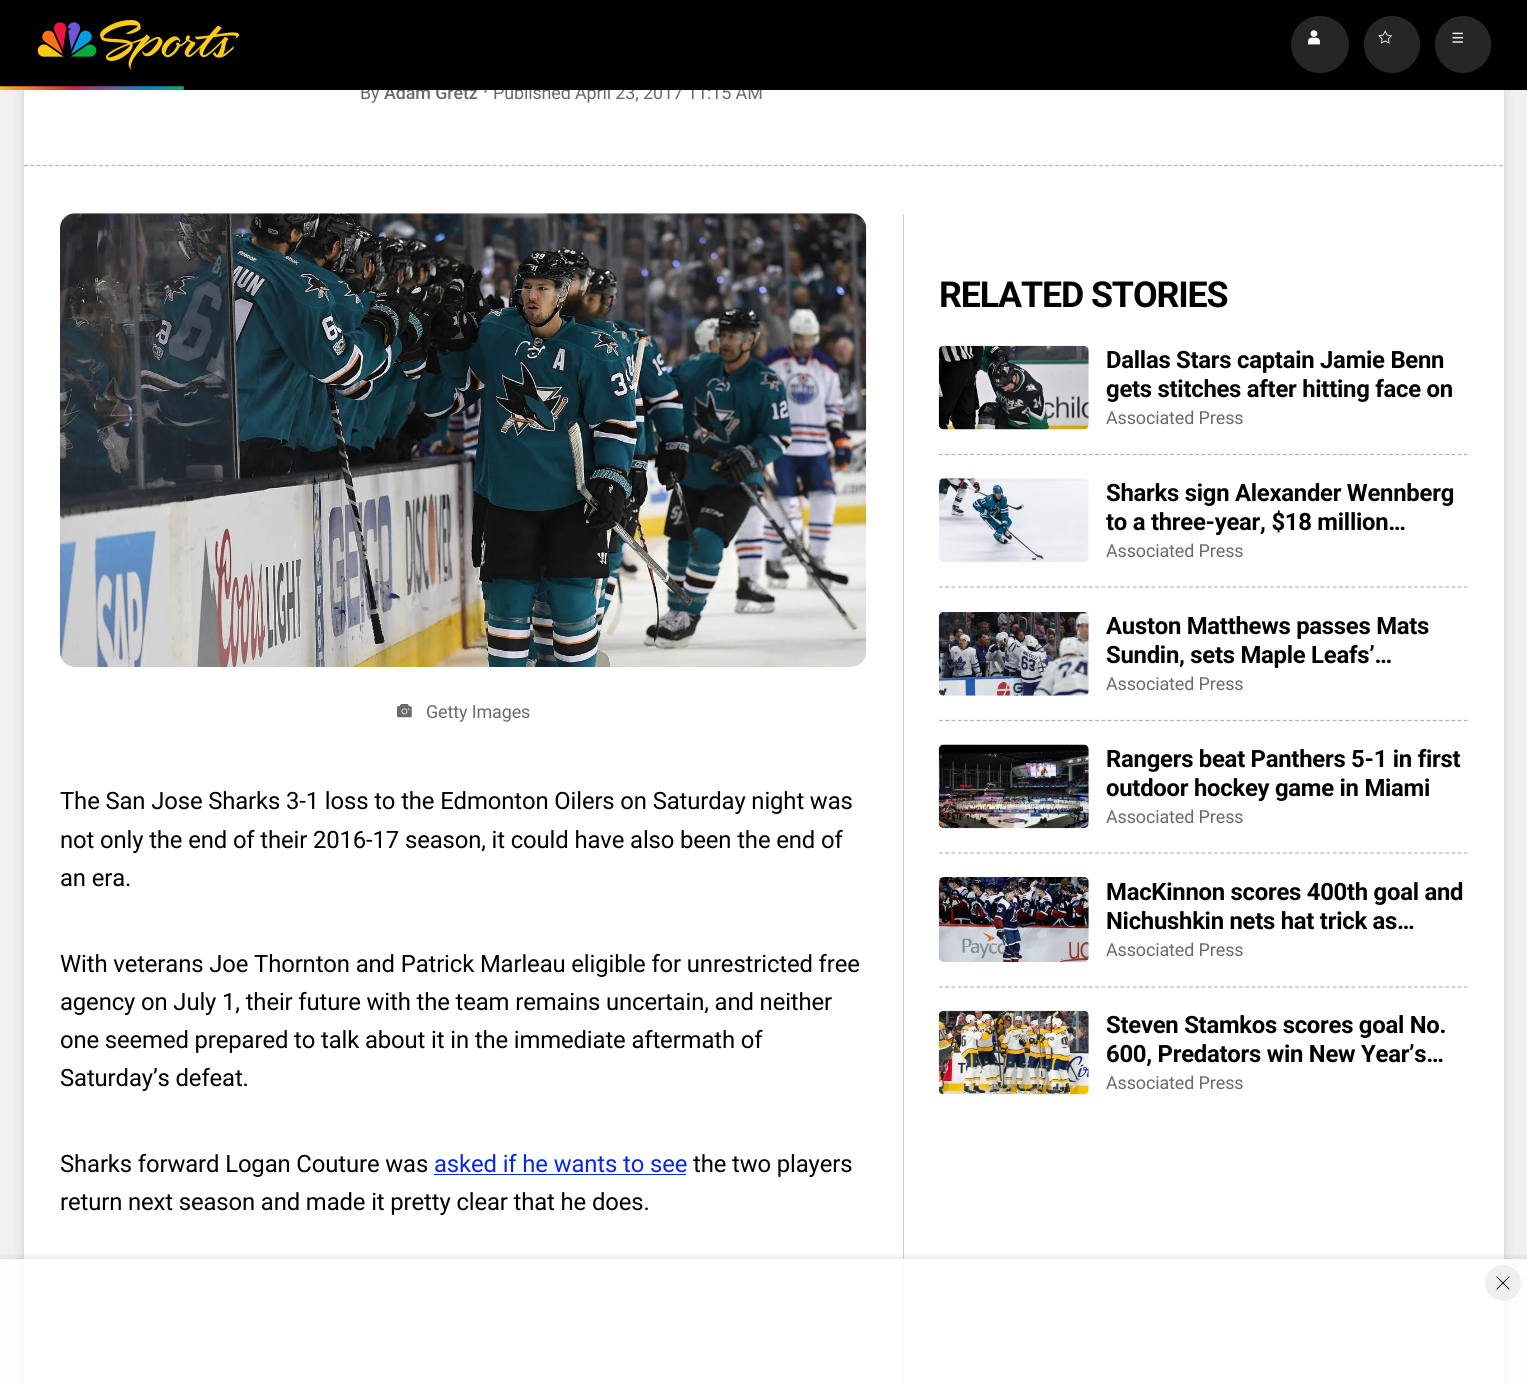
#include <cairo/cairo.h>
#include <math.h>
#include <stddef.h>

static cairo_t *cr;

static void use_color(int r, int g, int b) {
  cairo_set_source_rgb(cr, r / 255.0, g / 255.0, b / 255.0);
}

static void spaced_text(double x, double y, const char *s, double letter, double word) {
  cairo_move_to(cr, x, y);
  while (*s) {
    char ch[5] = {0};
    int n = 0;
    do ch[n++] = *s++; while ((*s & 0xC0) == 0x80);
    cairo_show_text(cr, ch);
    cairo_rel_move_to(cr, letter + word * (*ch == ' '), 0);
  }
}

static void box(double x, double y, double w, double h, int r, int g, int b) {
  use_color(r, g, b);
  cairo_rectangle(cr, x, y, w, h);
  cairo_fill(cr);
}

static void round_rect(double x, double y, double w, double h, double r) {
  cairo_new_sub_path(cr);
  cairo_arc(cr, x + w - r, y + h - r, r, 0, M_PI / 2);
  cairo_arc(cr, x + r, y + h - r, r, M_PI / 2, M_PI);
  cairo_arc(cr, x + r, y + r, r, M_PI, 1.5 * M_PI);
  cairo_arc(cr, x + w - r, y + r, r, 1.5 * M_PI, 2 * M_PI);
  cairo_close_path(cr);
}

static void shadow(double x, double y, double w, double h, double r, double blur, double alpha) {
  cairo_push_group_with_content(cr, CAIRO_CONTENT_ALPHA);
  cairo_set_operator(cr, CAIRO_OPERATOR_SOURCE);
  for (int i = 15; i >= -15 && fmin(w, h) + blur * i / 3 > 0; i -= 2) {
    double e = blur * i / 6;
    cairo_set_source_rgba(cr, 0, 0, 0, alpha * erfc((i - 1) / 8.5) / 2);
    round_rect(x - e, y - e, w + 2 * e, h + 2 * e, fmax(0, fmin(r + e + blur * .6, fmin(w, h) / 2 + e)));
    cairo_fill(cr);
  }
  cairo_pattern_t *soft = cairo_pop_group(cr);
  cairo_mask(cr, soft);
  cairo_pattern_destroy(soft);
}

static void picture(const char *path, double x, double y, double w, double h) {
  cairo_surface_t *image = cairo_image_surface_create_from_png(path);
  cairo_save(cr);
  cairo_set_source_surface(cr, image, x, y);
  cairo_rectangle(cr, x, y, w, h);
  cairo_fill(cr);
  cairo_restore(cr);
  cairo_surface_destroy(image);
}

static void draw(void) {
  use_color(241, 241, 241);
  cairo_paint(cr);
  use_color(0, 0, 0);
  shadow(24, -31, 1480, 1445, 13, 6, 0.15);
  box(24, 90, 1480, 1293, 255, 255, 255);
  cairo_new_path(cr);
  cairo_move_to(cr, 24, 165.5);
  cairo_line_to(cr, 1504, 165.5);
  use_color(179, 179, 179);
  cairo_set_line_width(cr, 1.2);
  cairo_set_dash(cr, (double[]){3.75, 2.5}, 2, 0);
  cairo_stroke(cr);
  use_color(106, 106, 106);
  cairo_arc(cr, 485.5, 91.5, 1.2, 0, 2 * M_PI);
  cairo_fill(cr);
  picture("img_06.png", 60, 213, 807, 454);
  picture("img_07.png", 397, 704, 15, 14);
  box(434, 1174, 252, 1, 3, 41, 231);
  box(903, 214, 1, 1169, 204, 204, 204);
  picture("img_08.png", 938, 345, 151, 85);
  cairo_new_path(cr);
  cairo_move_to(cr, 939, 454.5);
  cairo_line_to(cr, 1467.5, 454.5);
  use_color(179, 179, 179);
  cairo_stroke(cr);
  picture("img_09.png", 938, 478, 151, 84);
  cairo_new_path(cr);
  cairo_move_to(cr, 939, 587);
  cairo_line_to(cr, 1467.5, 587);
  cairo_stroke(cr);
  picture("img_10.png", 938, 612, 151, 84);
  cairo_new_path(cr);
  cairo_move_to(cr, 939, 720.5);
  cairo_line_to(cr, 1467.5, 720.5);
  cairo_stroke(cr);
  picture("img_11.png", 938, 744, 151, 85);
  cairo_new_path(cr);
  cairo_move_to(cr, 939, 853);
  cairo_line_to(cr, 1467.5, 853);
  cairo_stroke(cr);
  picture("img_12.png", 938, 877, 151, 85);
  cairo_new_path(cr);
  cairo_move_to(cr, 939, 987);
  cairo_line_to(cr, 1467.5, 987);
  cairo_stroke(cr);
  picture("img_13.png", 938, 1010, 151, 85);
  cairo_save(cr);
  cairo_rectangle(cr, 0, 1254, 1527, 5);
  cairo_clip(cr);
  use_color(0, 0, 0);
  shadow(0, 1256, 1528, 125, 0, 2.5, 0.08);
  cairo_restore(cr);
  cairo_set_source_rgba(cr, 1, 1, 1, 0.85);
  cairo_rectangle(cr, 0, 1259, 1527, 124);
  cairo_fill(cr);
  use_color(239, 239, 239);
  cairo_arc(cr, 1503, 1283, 18, 0, 2 * M_PI);
  cairo_fill(cr);
  picture("img_14.png", 1496, 1276, 14, 14);
  cairo_select_font_face(cr, "Roboto", CAIRO_FONT_SLANT_NORMAL, CAIRO_FONT_WEIGHT_NORMAL);
  cairo_set_font_size(cr, 17.9);
  use_color(106, 106, 106);
  spaced_text(360, 99, "By", -0.1, 0);
  cairo_select_font_face(cr, "Roboto Medium", CAIRO_FONT_SLANT_NORMAL, CAIRO_FONT_WEIGHT_NORMAL);
  spaced_text(384, 99, "Adam Gretz", -0.1, 0);
  cairo_select_font_face(cr, "Roboto", CAIRO_FONT_SLANT_NORMAL, CAIRO_FONT_WEIGHT_NORMAL);
  spaced_text(493, 99, "Published April 23, 2017 11:15 AM", -0.1, 0);
  box(0, 0, 1527, 90, 0, 0, 0);
  picture("img_05.png", 0, 86, 184, 4);
  use_color(38, 38, 38);
  round_rect(1291, 16, 58, 57, 28.5);
  cairo_fill(cr);
  picture("img_02.png", 1308, 30, 12, 15);
  round_rect(1435, 16, 56, 57, 28);
  cairo_fill(cr);
  picture("img_04.png", 1452, 32, 11, 11);
  round_rect(1364, 16, 56, 57, 28);
  cairo_fill(cr);
  picture("img_03.png", 1378, 30, 15, 14);
  picture("img_01.png", 37, 20, 202, 50);
  use_color(106, 106, 106);
  spaced_text(426, 718, "Getty Images", -0.1, 0);
  cairo_set_font_size(cr, 23.85);
  use_color(0, 0, 0);
  spaced_text(60, 809, "The San Jose Sharks 3-1 loss to the Edmonton Oilers on Saturday night was", -0.12, 0);
  spaced_text(60, 848, "not only the end of their 2016-17 season, it could have also been the end of", -0.12, 0);
  spaced_text(60, 886, "an era.", -0.12, 0);
  spaced_text(60, 972, "With veterans Joe Thornton and Patrick Marleau eligible for unrestricted free", -0.12, 0);
  spaced_text(60, 1010, "agency on July 1, their future with the team remains uncertain, and neither", -0.12, 0);
  spaced_text(60, 1048, "one seemed prepared to talk about it in the immediate aftermath of", -0.12, 0);
  spaced_text(60, 1086, "Saturday’s defeat.", -0.12, 0);
  spaced_text(60, 1172, "Sharks forward Logan Couture was", -0.12, 0);
  use_color(3, 41, 231);
  spaced_text(434, 1172, "asked if he wants to see", -0.12, 0);
  use_color(0, 0, 0);
  spaced_text(693, 1172, "the two players", -0.12, 0);
  spaced_text(60, 1210, "return next season and made it pretty clear that he does.", -0.12, 0);
  cairo_select_font_face(cr, "Roboto", CAIRO_FONT_SLANT_NORMAL, CAIRO_FONT_WEIGHT_BOLD);
  cairo_set_font_size(cr, 35.75);
  spaced_text(939, 307, "RELATED STORIES", -1.1, 0);
  cairo_set_font_size(cr, 23.85);
  spaced_text(1106, 368, "Dallas Stars captain Jamie Benn", -0.25, 0);
  spaced_text(1106, 397, "gets stitches after hitting face on", -0.25, 0);
  cairo_select_font_face(cr, "Roboto", CAIRO_FONT_SLANT_NORMAL, CAIRO_FONT_WEIGHT_NORMAL);
  cairo_set_font_size(cr, 17.9);
  use_color(106, 106, 106);
  spaced_text(1106, 424, "Associated Press", -0.1, 0);
  cairo_select_font_face(cr, "Roboto", CAIRO_FONT_SLANT_NORMAL, CAIRO_FONT_WEIGHT_BOLD);
  cairo_set_font_size(cr, 23.85);
  use_color(0, 0, 0);
  spaced_text(1106, 501, "Sharks sign Alexander Wennberg", -0.25, 0);
  spaced_text(1106, 530, "to a three-year, $18 million…", -0.25, 0);
  cairo_select_font_face(cr, "Roboto", CAIRO_FONT_SLANT_NORMAL, CAIRO_FONT_WEIGHT_NORMAL);
  cairo_set_font_size(cr, 17.9);
  use_color(106, 106, 106);
  spaced_text(1106, 557, "Associated Press", -0.1, 0);
  cairo_select_font_face(cr, "Roboto", CAIRO_FONT_SLANT_NORMAL, CAIRO_FONT_WEIGHT_BOLD);
  cairo_set_font_size(cr, 23.85);
  use_color(0, 0, 0);
  spaced_text(1106, 634, "Auston Matthews passes Mats", -0.25, 0);
  spaced_text(1106, 663, "Sundin, sets Maple Leafs’…", -0.25, 0);
  cairo_select_font_face(cr, "Roboto", CAIRO_FONT_SLANT_NORMAL, CAIRO_FONT_WEIGHT_NORMAL);
  cairo_set_font_size(cr, 17.9);
  use_color(106, 106, 106);
  spaced_text(1106, 690, "Associated Press", -0.1, 0);
  cairo_select_font_face(cr, "Roboto", CAIRO_FONT_SLANT_NORMAL, CAIRO_FONT_WEIGHT_BOLD);
  cairo_set_font_size(cr, 23.85);
  use_color(0, 0, 0);
  spaced_text(1106, 767, "Rangers beat Panthers 5-1 in first", -0.25, 0);
  spaced_text(1106, 796, "outdoor hockey game in Miami", -0.25, 0);
  cairo_select_font_face(cr, "Roboto", CAIRO_FONT_SLANT_NORMAL, CAIRO_FONT_WEIGHT_NORMAL);
  cairo_set_font_size(cr, 17.9);
  use_color(106, 106, 106);
  spaced_text(1106, 823, "Associated Press", -0.1, 0);
  cairo_select_font_face(cr, "Roboto", CAIRO_FONT_SLANT_NORMAL, CAIRO_FONT_WEIGHT_BOLD);
  cairo_set_font_size(cr, 23.85);
  use_color(0, 0, 0);
  spaced_text(1106, 900, "MacKinnon scores 400th goal and", -0.25, 0);
  spaced_text(1106, 929, "Nichushkin nets hat trick as…", -0.25, 0);
  cairo_select_font_face(cr, "Roboto", CAIRO_FONT_SLANT_NORMAL, CAIRO_FONT_WEIGHT_NORMAL);
  cairo_set_font_size(cr, 17.9);
  use_color(106, 106, 106);
  spaced_text(1106, 956, "Associated Press", -0.1, 0);
  cairo_select_font_face(cr, "Roboto", CAIRO_FONT_SLANT_NORMAL, CAIRO_FONT_WEIGHT_BOLD);
  cairo_set_font_size(cr, 23.85);
  use_color(0, 0, 0);
  spaced_text(1106, 1033, "Steven Stamkos scores goal No.", -0.25, 0);
  spaced_text(1106, 1062, "600, Predators win New Year’s…", -0.25, 0);
  cairo_select_font_face(cr, "Roboto", CAIRO_FONT_SLANT_NORMAL, CAIRO_FONT_WEIGHT_NORMAL);
  cairo_set_font_size(cr, 17.9);
  use_color(106, 106, 106);
  spaced_text(1106, 1089, "Associated Press", -0.1, 0);
}

int main(void) {
  cairo_surface_t *surface = cairo_image_surface_create(CAIRO_FORMAT_RGB24, 1527, 1383);
  cr = cairo_create(surface);
  cairo_font_options_t *options = cairo_font_options_create();
  cairo_font_options_set_hint_metrics(options, CAIRO_HINT_METRICS_OFF);
  cairo_font_options_set_hint_style(options, CAIRO_HINT_STYLE_NONE);
  cairo_set_font_options(cr, options);
  cairo_set_miter_limit(cr, 4);
  draw();
  cairo_surface_write_to_png(surface, "out.png");
  cairo_font_options_destroy(options);
  cairo_destroy(cr);
  cairo_surface_destroy(surface);
  return 0;
}
